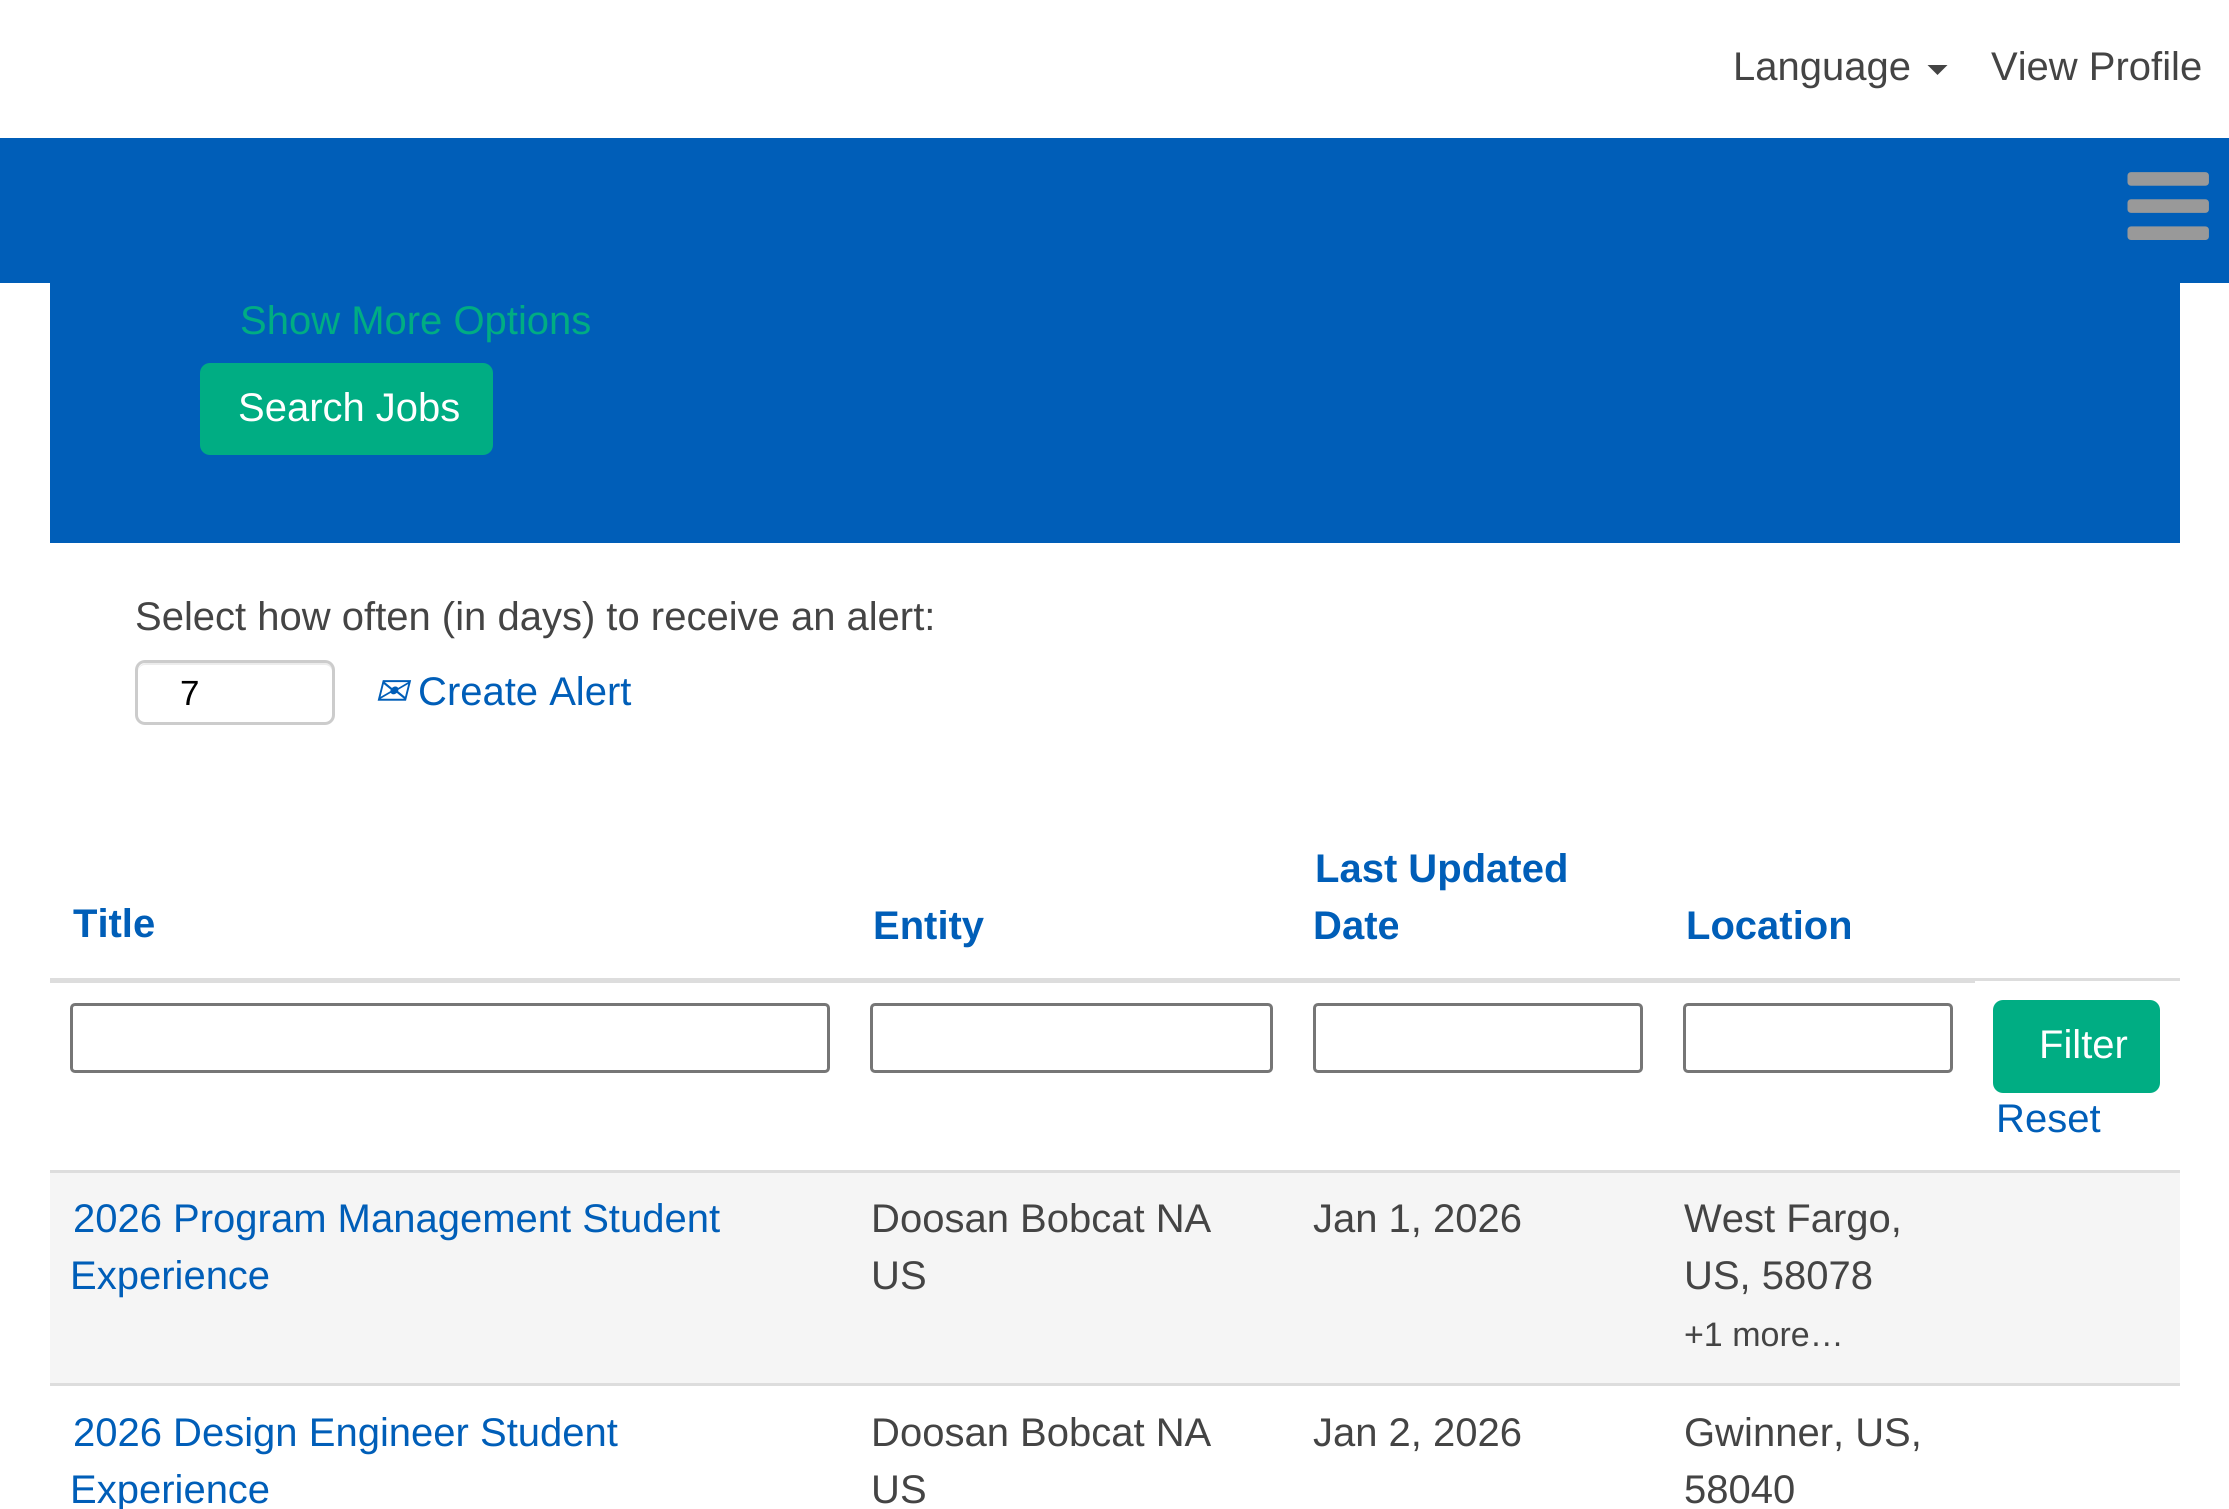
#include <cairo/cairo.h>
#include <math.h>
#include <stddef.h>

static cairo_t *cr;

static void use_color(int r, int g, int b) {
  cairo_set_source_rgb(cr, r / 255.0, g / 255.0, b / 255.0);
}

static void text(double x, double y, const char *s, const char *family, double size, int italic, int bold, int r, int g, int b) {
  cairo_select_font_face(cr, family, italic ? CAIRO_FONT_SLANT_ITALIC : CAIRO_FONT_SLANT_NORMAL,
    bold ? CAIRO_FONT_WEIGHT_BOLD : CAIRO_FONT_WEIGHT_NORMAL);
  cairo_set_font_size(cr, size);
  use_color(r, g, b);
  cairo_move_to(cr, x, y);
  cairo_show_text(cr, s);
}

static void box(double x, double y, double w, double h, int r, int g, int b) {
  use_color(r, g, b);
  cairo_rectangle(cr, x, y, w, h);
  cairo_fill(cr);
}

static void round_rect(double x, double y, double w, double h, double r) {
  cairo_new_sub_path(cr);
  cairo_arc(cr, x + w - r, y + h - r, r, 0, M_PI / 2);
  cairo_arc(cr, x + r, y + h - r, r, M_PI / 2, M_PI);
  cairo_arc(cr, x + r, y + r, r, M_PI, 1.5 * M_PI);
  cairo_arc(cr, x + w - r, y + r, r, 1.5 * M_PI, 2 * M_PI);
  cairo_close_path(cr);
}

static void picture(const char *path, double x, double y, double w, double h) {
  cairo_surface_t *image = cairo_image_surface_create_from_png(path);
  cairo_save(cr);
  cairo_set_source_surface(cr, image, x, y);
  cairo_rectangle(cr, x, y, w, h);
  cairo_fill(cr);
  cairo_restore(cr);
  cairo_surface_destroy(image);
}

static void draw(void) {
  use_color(255, 255, 255);
  cairo_paint(cr);
  use_color(68, 68, 68);
  cairo_new_path(cr);
  cairo_move_to(cr, 1927.5, 65);
  cairo_line_to(cr, 1947.5, 65);
  cairo_line_to(cr, 1937.5, 75);
  cairo_close_path(cr);
  cairo_fill(cr);
  box(0, 138, 2229, 145, 0, 94, 184);
  picture("img_01.png", 2127, 172, 82, 68);
  box(50, 283, 2130, 260, 0, 94, 184);
  use_color(0, 173, 131);
  round_rect(200, 363, 293, 92, 10);
  cairo_fill(cr);
  use_color(236, 236, 236);
  cairo_new_path(cr);
  cairo_move_to(cr, 145, 665);
  cairo_line_to(cr, 325, 665);
  cairo_curve_to(cr, 329, 665, 332, 668, 332, 672);
  cairo_line_to(cr, 332, 719);
  cairo_curve_to(cr, 333, 718, 333, 716, 333, 715);
  cairo_line_to(cr, 333, 671);
  cairo_curve_to(cr, 333, 667, 329, 663, 325, 663);
  cairo_line_to(cr, 146, 663);
  cairo_curve_to(cr, 142, 663, 138, 667, 138, 671);
  cairo_line_to(cr, 138, 672);
  cairo_curve_to(cr, 138, 668, 141, 665, 145, 665);
  cairo_close_path(cr);
  cairo_fill(cr);
  round_rect(136.5, 661.5, 197, 62, 8.5);
  use_color(204, 204, 204);
  cairo_set_line_width(cr, 3);
  cairo_stroke(cr);
  box(1973, 978, 207, 3, 221, 221, 221);
  box(50, 978, 1925, 5, 221, 221, 221);
  round_rect(71.5, 1004.5, 757, 67, 3.5);
  use_color(118, 118, 118);
  cairo_stroke(cr);
  round_rect(871.5, 1004.5, 400, 67, 3.5);
  cairo_stroke(cr);
  round_rect(1314.5, 1004.5, 327, 67, 3.5);
  cairo_stroke(cr);
  round_rect(1684.5, 1004.5, 267, 67, 3.5);
  cairo_stroke(cr);
  use_color(0, 173, 131);
  round_rect(1993, 1000, 167, 93, 10);
  cairo_fill(cr);
  box(50, 1173, 2130, 210, 245, 245, 245);
  box(50, 1170, 2130, 3, 221, 221, 221);
  box(50, 1383, 2130, 3, 221, 221, 221);
  text(1733, 80, "Language", "Liberation Sans", 40, 0, 0, 68, 68, 68);
  text(1991, 80, "View Profile", "Liberation Sans", 40, 0, 0, 68, 68, 68);
  text(240, 334, "Show More Options", "Liberation Sans", 40, 0, 0, 0, 173, 131);
  text(238, 421, "Search Jobs", "Liberation Sans", 40, 0, 0, 255, 255, 255);
  text(135, 630, "Select how often (in days) to receive an alert:", "Liberation Sans", 40, 0, 0, 68, 68, 68);
  text(180, 705, "7", "Liberation Sans", 35, 0, 0, 0, 0, 0);
  text(374, 705, "✉", "DejaVu Sans", 40, 1, 0, 0, 94, 184);
  text(418, 705, "Create Alert", "Liberation Sans", 40, 0, 0, 0, 94, 184);
  text(73, 937, "Title", "Liberation Sans", 40, 0, 1, 0, 94, 184);
  text(873, 939, "Entity", "Liberation Sans", 40, 0, 1, 0, 94, 184);
  text(1315, 882, "Last Updated", "Liberation Sans", 40, 0, 1, 0, 94, 184);
  text(1313, 939, "Date", "Liberation Sans", 40, 0, 1, 0, 94, 184);
  text(1686, 939, "Location", "Liberation Sans", 40, 0, 1, 0, 94, 184);
  text(2039, 1058, "Filter", "Liberation Sans", 40, 0, 0, 255, 255, 255);
  text(1996, 1132, "Reset", "Liberation Sans", 40, 0, 0, 0, 94, 184);
  text(73, 1232, "2026 Program Management Student", "Liberation Sans", 40, 0, 0, 0, 94, 184);
  text(70, 1289, "Experience", "Liberation Sans", 40, 0, 0, 0, 94, 184);
  text(871, 1232, "Doosan Bobcat NA", "Liberation Sans", 40, 0, 0, 68, 68, 68);
  text(871, 1289, "US", "Liberation Sans", 40, 0, 0, 68, 68, 68);
  text(1313, 1232, "Jan 1, 2026", "Liberation Sans", 40, 0, 0, 68, 68, 68);
  text(1684, 1232, "West Fargo,", "Liberation Sans", 40, 0, 0, 68, 68, 68);
  text(1684, 1289, "US, 58078", "Liberation Sans", 40, 0, 0, 68, 68, 68);
  text(1684, 1346, "+1 more…", "Liberation Sans", 34, 0, 0, 68, 68, 68);
  text(73, 1446, "2026 Design Engineer Student", "Liberation Sans", 40, 0, 0, 0, 94, 184);
  text(70, 1503, "Experience", "Liberation Sans", 40, 0, 0, 0, 94, 184);
  text(871, 1446, "Doosan Bobcat NA", "Liberation Sans", 40, 0, 0, 68, 68, 68);
  text(871, 1503, "US", "Liberation Sans", 40, 0, 0, 68, 68, 68);
  text(1313, 1446, "Jan 2, 2026", "Liberation Sans", 40, 0, 0, 68, 68, 68);
  text(1684, 1446, "Gwinner, US,", "Liberation Sans", 40, 0, 0, 68, 68, 68);
  text(1684, 1503, "58040", "Liberation Sans", 40, 0, 0, 68, 68, 68);
}

int main(void) {
  cairo_surface_t *surface = cairo_image_surface_create(CAIRO_FORMAT_RGB24, 2229, 1509);
  cr = cairo_create(surface);
  cairo_font_options_t *options = cairo_font_options_create();
  cairo_font_options_set_hint_metrics(options, CAIRO_HINT_METRICS_OFF);
  cairo_font_options_set_hint_style(options, CAIRO_HINT_STYLE_NONE);
  cairo_set_font_options(cr, options);
  cairo_set_miter_limit(cr, 4);
  draw();
  cairo_surface_write_to_png(surface, "out.png");
  cairo_font_options_destroy(options);
  cairo_destroy(cr);
  cairo_surface_destroy(surface);
  return 0;
}
